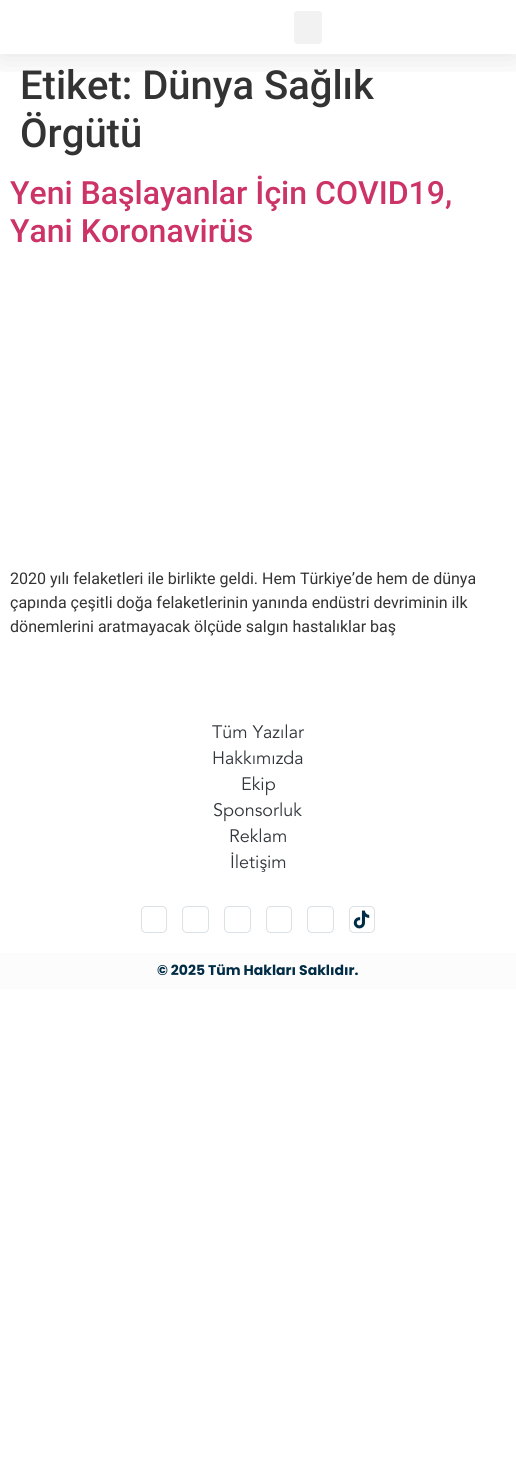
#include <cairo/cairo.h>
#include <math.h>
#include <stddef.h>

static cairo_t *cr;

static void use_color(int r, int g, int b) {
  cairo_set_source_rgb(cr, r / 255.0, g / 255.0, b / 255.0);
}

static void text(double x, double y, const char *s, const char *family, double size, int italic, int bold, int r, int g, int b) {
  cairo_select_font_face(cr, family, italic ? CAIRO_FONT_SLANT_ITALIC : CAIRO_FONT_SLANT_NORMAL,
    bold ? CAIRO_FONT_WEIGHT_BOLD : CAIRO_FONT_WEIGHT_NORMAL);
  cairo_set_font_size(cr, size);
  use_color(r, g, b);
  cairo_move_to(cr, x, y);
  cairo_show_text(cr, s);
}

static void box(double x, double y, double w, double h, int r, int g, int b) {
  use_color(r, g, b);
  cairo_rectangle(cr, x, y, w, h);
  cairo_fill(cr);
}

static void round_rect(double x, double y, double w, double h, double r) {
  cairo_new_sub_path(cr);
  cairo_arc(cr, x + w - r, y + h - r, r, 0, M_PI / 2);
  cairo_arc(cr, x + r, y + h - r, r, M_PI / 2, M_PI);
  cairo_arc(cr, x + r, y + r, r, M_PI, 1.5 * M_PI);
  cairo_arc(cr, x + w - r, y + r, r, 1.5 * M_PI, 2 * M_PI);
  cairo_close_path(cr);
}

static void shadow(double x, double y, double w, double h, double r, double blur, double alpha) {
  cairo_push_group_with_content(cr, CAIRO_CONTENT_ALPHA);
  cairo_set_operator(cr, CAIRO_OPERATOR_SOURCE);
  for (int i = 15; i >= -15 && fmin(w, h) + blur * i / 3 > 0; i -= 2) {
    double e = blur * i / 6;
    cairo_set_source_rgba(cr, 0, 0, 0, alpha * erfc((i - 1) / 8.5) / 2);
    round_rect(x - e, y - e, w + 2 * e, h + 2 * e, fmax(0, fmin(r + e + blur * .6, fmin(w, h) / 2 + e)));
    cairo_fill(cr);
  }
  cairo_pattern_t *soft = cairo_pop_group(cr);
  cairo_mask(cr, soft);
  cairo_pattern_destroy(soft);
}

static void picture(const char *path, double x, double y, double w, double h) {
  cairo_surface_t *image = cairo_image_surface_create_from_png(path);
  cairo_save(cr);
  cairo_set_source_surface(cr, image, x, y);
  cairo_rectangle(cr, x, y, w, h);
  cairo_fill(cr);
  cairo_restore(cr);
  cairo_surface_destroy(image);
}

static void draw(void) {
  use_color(255, 255, 255);
  cairo_paint(cr);
  cairo_save(cr);
  cairo_rectangle(cr, 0, 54, 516, 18);
  cairo_clip(cr);
  use_color(0, 0, 0);
  shadow(0, 5, 516, 54, 0, 15, 0.1);
  cairo_restore(cr);
  use_color(242, 242, 242);
  round_rect(294, 11, 28, 33, 3);
  cairo_fill(cr);
  round_rect(141.5, 906.5, 25, 26, 4.5);
  use_color(219, 225, 229);
  cairo_set_line_width(cr, 1);
  cairo_stroke(cr);
  round_rect(182.5, 906.5, 26, 26, 4.5);
  cairo_stroke(cr);
  round_rect(224.5, 906.5, 26, 26, 4.5);
  cairo_stroke(cr);
  round_rect(266.5, 906.5, 25, 26, 4.5);
  cairo_stroke(cr);
  round_rect(307.5, 906.5, 26, 26, 4.5);
  cairo_stroke(cr);
  round_rect(349.5, 906.5, 25, 26, 4.5);
  cairo_stroke(cr);
  picture("img_01.png", 353, 910, 17, 19);
  box(0, 953, 516, 36, 252, 252, 252);
  text(20, 99, "Etiket: Dünya Sağlık", "Roboto Medium", 40, 0, 0, 51, 51, 51);
  text(20, 147, "Örgütü", "Roboto Medium", 40, 0, 0, 51, 51, 51);
  text(10, 204, "Yeni Başlayanlar İçin COVID19,", "Roboto Medium", 32, 0, 0, 204, 51, 102);
  text(10, 242, "Yani Koronavirüs", "Roboto Medium", 32, 0, 0, 204, 51, 102);
  text(10, 584, "2020 yılı felaketleri ile birlikte geldi. Hem Türkiye’de hem de dünya", "Roboto", 16, 0, 0, 51, 51, 51);
  text(10, 608, "çapında çeşitli doğa felaketlerinin yanında endüstri devriminin ilk", "Roboto", 16, 0, 0, 51, 51, 51);
  text(10, 632, "dönemlerini aratmayacak ölçüde salgın hastalıklar baş", "Roboto", 16, 0, 0, 51, 51, 51);
  text(212, 738, "Tüm Yazılar", "Avenir", 18, 0, 0, 51, 55, 61);
  text(212, 764, "Hakkımızda", "Avenir", 18, 0, 0, 51, 55, 61);
  text(241, 790, "Ekip", "Avenir", 18, 0, 0, 51, 55, 61);
  text(213, 816, "Sponsorluk", "Avenir", 18, 0, 0, 51, 55, 61);
  text(229, 842, "Reklam", "Avenir", 18, 0, 0, 51, 55, 61);
  text(230, 868, "İletişim", "Avenir", 18, 0, 0, 51, 55, 61);
  text(157, 975, "© 2025 Tüm Hakları Saklıdır.", "Poppins", 14, 0, 1, 0, 44, 70);
}

int main(void) {
  cairo_surface_t *surface = cairo_image_surface_create(CAIRO_FORMAT_RGB24, 516, 1462);
  cr = cairo_create(surface);
  cairo_font_options_t *options = cairo_font_options_create();
  cairo_font_options_set_hint_metrics(options, CAIRO_HINT_METRICS_OFF);
  cairo_font_options_set_hint_style(options, CAIRO_HINT_STYLE_NONE);
  cairo_set_font_options(cr, options);
  cairo_set_miter_limit(cr, 4);
  draw();
  cairo_surface_write_to_png(surface, "out.png");
  cairo_font_options_destroy(options);
  cairo_destroy(cr);
  cairo_surface_destroy(surface);
  return 0;
}
